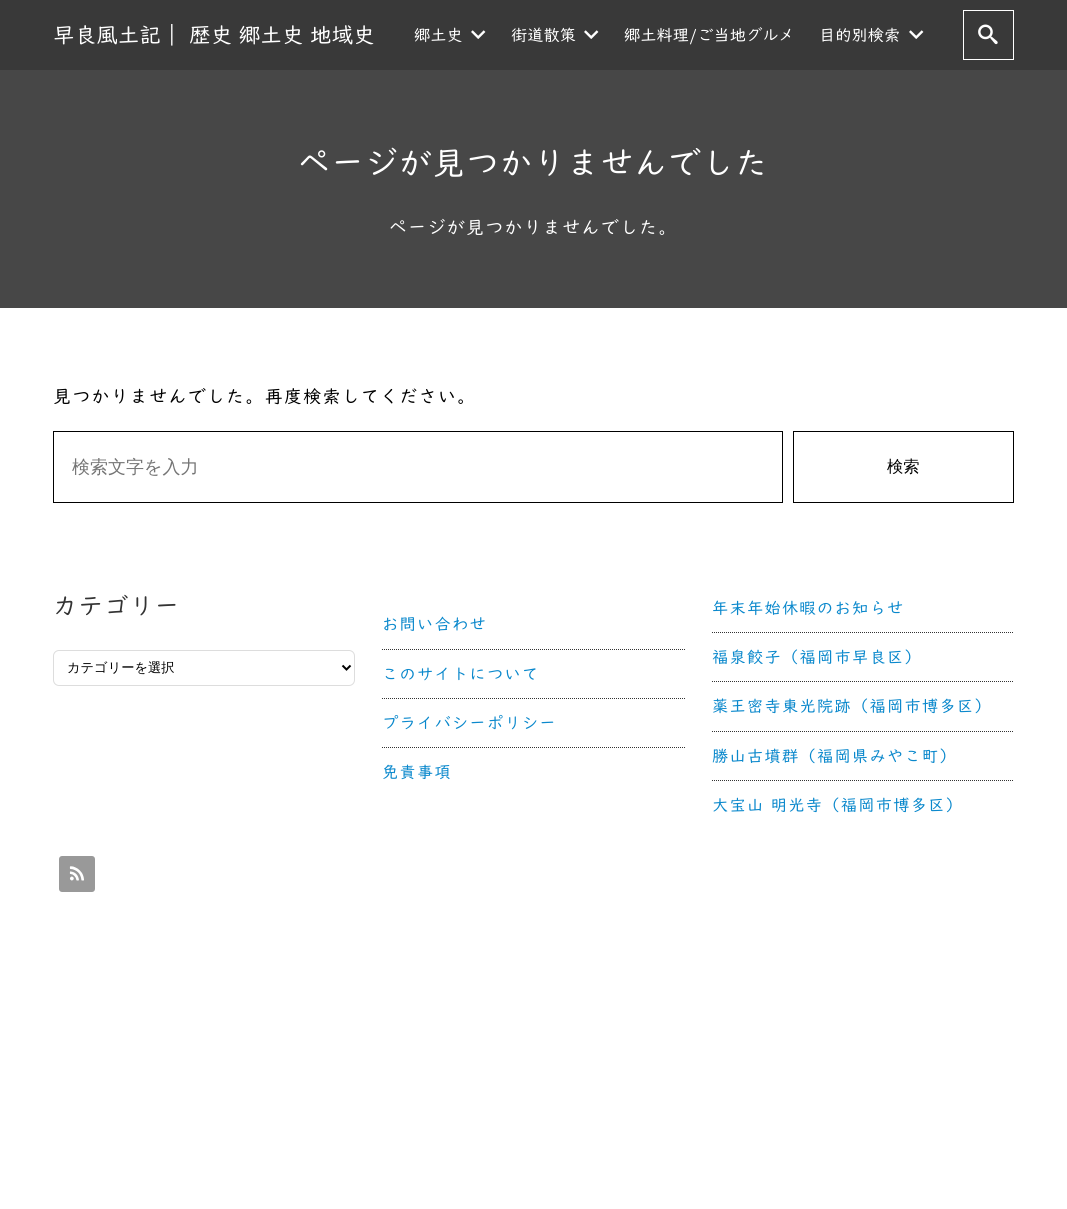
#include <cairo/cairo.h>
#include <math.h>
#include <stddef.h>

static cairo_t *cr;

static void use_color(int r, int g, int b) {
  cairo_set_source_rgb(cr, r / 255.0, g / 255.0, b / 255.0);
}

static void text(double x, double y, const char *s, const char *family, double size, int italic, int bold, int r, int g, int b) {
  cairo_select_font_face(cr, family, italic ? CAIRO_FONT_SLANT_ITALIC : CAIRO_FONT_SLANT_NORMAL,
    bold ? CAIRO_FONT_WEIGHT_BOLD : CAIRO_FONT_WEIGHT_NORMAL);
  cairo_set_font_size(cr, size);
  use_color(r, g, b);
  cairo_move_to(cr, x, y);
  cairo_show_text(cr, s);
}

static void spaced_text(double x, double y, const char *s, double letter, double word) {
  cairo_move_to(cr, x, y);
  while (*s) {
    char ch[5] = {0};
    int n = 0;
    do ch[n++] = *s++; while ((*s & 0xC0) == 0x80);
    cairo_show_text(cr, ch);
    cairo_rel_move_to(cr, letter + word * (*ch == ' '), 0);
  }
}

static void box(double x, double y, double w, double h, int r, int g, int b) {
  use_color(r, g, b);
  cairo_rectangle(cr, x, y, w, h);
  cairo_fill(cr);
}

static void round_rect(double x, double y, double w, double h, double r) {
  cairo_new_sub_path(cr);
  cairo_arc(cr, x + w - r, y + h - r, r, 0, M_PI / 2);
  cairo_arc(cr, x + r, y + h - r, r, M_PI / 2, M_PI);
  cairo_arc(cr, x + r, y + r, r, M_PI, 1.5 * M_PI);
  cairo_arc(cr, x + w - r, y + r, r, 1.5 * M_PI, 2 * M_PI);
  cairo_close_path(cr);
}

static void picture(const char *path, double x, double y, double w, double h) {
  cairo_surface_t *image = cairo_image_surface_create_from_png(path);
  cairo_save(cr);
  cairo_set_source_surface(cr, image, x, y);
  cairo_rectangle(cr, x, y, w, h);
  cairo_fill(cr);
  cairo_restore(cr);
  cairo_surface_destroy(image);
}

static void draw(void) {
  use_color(255, 255, 255);
  cairo_paint(cr);
  box(0, 0, 1067, 70, 57, 57, 57);
  picture("img_01.png", 471, 30, 15, 9);
  picture("img_01.png", 584, 30, 15, 9);
  picture("img_01.png", 909, 30, 15, 9);
  cairo_rectangle(cr, 963.5, 10.5, 50, 49);
  use_color(255, 255, 255);
  cairo_set_line_width(cr, 1);
  cairo_stroke(cr);
  picture("img_02.png", 978, 24, 20, 21);
  box(0, 70, 1067, 238, 71, 71, 71);
  cairo_rectangle(cr, 53.5, 431.5, 729, 71);
  use_color(0, 0, 0);
  cairo_stroke(cr);
  cairo_rectangle(cr, 793.5, 431.5, 220, 71);
  cairo_stroke(cr);
  round_rect(53.5, 650.5, 301, 35, 5.5);
  use_color(221, 221, 221);
  cairo_stroke(cr);
  cairo_new_path(cr);
  cairo_move_to(cr, 342.5, 665.5);
  cairo_line_to(cr, 346.5, 669.5);
  cairo_line_to(cr, 350.5, 665.5);
  use_color(0, 0, 0);
  cairo_set_line_width(cr, 2);
  cairo_stroke(cr);
  cairo_new_path(cr);
  cairo_move_to(cr, 382, 649.5);
  cairo_line_to(cr, 685, 649.5);
  use_color(51, 51, 51);
  cairo_set_line_width(cr, 1);
  cairo_set_dash(cr, (double[]){1, 1}, 2, 0);
  cairo_stroke(cr);
  cairo_new_path(cr);
  cairo_move_to(cr, 382, 698.5);
  cairo_line_to(cr, 685, 698.5);
  cairo_stroke(cr);
  cairo_new_path(cr);
  cairo_move_to(cr, 382, 747.5);
  cairo_line_to(cr, 685, 747.5);
  cairo_stroke(cr);
  cairo_new_path(cr);
  cairo_move_to(cr, 712, 632.5);
  cairo_line_to(cr, 1014, 632.5);
  cairo_stroke(cr);
  cairo_new_path(cr);
  cairo_move_to(cr, 712, 681.5);
  cairo_line_to(cr, 1014, 681.5);
  cairo_stroke(cr);
  cairo_new_path(cr);
  cairo_move_to(cr, 712, 731.5);
  cairo_line_to(cr, 1014, 731.5);
  cairo_stroke(cr);
  cairo_new_path(cr);
  cairo_move_to(cr, 712, 780.5);
  cairo_line_to(cr, 1014, 780.5);
  cairo_stroke(cr);
  use_color(153, 153, 153);
  round_rect(59, 856, 36, 36, 3);
  cairo_fill(cr);
  picture("img_03.png", 69, 866, 15, 15);
  text(53, 43, "早良風土記｜ 歴史 郷土史 地域史", "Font", 21.6, 0, 0, 255, 255, 255);
  text(414, 41, "郷土史", "Font", 16.25, 0, 0, 255, 255, 255);
  text(511, 41, "街道散策", "Font", 16.25, 0, 0, 255, 255, 255);
  text(624, 41, "郷土料理/ご当地グルメ", "Font", 16.25, 0, 0, 255, 255, 255);
  text(819, 41, "目的別検索", "Font", 16.25, 0, 0, 255, 255, 255);
  cairo_set_font_size(cr, 32.4);
  spaced_text(298, 175, "ページが見つかりませんでした", 1.25, 0);
  cairo_set_font_size(cr, 18);
  spaced_text(389, 234, "ページが見つかりませんでした。", 1.25, 0);
  use_color(0, 0, 0);
  spaced_text(53, 403, "見つかりませんでした。再度検索してください。", 1.25, 0);
  text(72, 473, "検索文字を入力", "WenQuanYi Zen Hei Medium", 18, 0, 0, 117, 117, 117);
  text(887, 472, "検索", "WenQuanYi Zen Hei Medium", 16.25, 0, 0, 0, 0, 0);
  cairo_select_font_face(cr, "Font", CAIRO_FONT_SLANT_NORMAL, CAIRO_FONT_WEIGHT_NORMAL);
  cairo_set_font_size(cr, 24.25);
  use_color(51, 51, 51);
  spaced_text(53, 615, "カテゴリー", 1.25, 0);
  text(67, 672, "カテゴリーを選択", "WenQuanYi Zen Hei Medium", 13.25, 0, 0, 0, 0, 0);
  cairo_select_font_face(cr, "Font", CAIRO_FONT_SLANT_NORMAL, CAIRO_FONT_WEIGHT_NORMAL);
  cairo_set_font_size(cr, 16.25);
  use_color(10, 136, 204);
  spaced_text(382, 630, "お問い合わせ", 1.25, 0);
  spaced_text(382, 680, "このサイトについて", 1.25, 0);
  spaced_text(382, 729, "プライバシーポリシー", 1.25, 0);
  spaced_text(382, 778, "免責事項", 1.25, 0);
  spaced_text(712, 614, "年末年始休暇のお知らせ", 1.25, 0);
  spaced_text(712, 663, "福泉餃子（福岡市早良区）", 1.25, 0);
  spaced_text(712, 712, "薬王密寺東光院跡（福岡市博多区）", 1.25, 0);
  spaced_text(712, 762, "勝山古墳群（福岡県みやこ町）", 1.25, 0);
  spaced_text(712, 811, "大宝山 明光寺（福岡市博多区）", 1.25, 0);
}

int main(void) {
  cairo_surface_t *surface = cairo_image_surface_create(CAIRO_FORMAT_RGB24, 1067, 1209);
  cr = cairo_create(surface);
  cairo_font_options_t *options = cairo_font_options_create();
  cairo_font_options_set_hint_metrics(options, CAIRO_HINT_METRICS_OFF);
  cairo_font_options_set_hint_style(options, CAIRO_HINT_STYLE_NONE);
  cairo_set_font_options(cr, options);
  cairo_set_miter_limit(cr, 4);
  draw();
  cairo_surface_write_to_png(surface, "out.png");
  cairo_font_options_destroy(options);
  cairo_destroy(cr);
  cairo_surface_destroy(surface);
  return 0;
}
